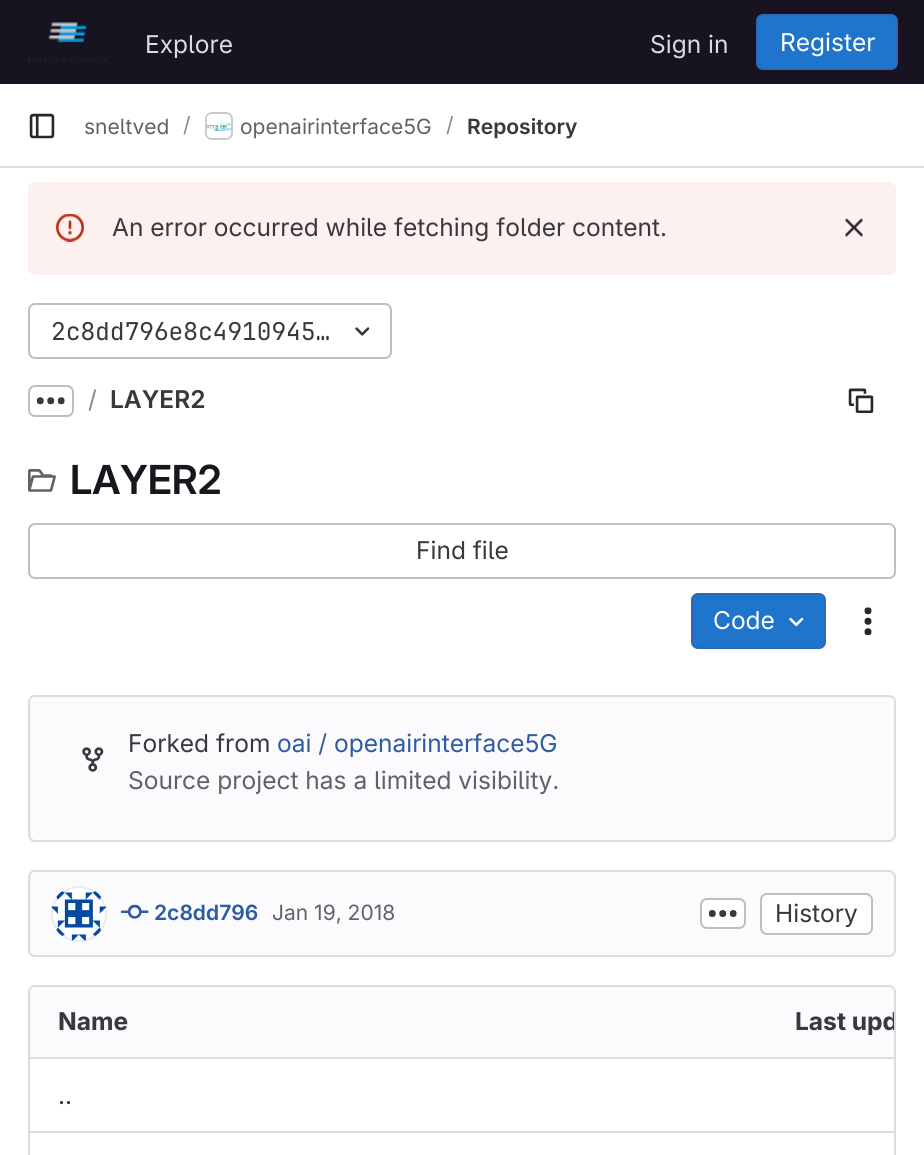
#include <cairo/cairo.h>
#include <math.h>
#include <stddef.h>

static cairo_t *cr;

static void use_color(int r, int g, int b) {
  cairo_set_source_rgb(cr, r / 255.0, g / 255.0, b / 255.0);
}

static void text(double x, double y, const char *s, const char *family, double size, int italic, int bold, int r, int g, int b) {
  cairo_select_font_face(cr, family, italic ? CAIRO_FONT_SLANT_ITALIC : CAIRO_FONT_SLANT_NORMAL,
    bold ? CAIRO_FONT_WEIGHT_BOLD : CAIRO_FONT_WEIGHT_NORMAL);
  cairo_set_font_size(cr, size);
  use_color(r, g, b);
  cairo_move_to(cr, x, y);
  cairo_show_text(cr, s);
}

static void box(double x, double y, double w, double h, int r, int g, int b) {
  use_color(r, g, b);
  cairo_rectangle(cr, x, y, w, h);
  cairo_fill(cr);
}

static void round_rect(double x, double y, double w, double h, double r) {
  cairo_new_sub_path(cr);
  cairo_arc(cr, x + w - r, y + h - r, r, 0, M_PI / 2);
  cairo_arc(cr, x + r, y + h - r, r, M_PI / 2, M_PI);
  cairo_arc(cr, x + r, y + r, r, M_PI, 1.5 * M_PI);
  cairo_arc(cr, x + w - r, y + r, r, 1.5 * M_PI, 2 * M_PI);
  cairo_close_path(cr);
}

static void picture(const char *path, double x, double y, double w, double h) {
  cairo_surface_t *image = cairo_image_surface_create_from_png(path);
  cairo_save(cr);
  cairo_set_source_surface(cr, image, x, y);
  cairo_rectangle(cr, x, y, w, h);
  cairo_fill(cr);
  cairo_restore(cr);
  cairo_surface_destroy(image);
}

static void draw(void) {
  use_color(255, 255, 255);
  cairo_paint(cr);
  box(0, 0, 924, 84, 23, 19, 33);
  picture("img_01.png", 28, 22, 80, 40);
  use_color(31, 117, 203);
  round_rect(757, 15, 140, 54, 6);
  cairo_fill_preserve(cr);
  use_color(47, 104, 180);
  cairo_stroke(cr);
  box(0, 166, 924, 2, 220, 220, 222);
  picture("img_02.png", 29, 113, 26, 26);
  round_rect(206, 113, 26, 26, 6);
  cairo_stroke(cr);
  picture("img_03.png", 206, 114, 25, 24);
  round_rect(206, 113, 26, 26, 6);
  cairo_set_source_rgba(cr, 0.02, 0.02, 0.024, 0.08);
  cairo_stroke(cr);
  use_color(252, 241, 239);
  round_rect(28, 182, 868, 93, 7);
  cairo_fill(cr);
  picture("img_04.png", 56, 214, 28, 28);
  picture("img_05.png", 845, 218, 18, 19);
  round_rect(29, 304, 362, 54, 6);
  use_color(191, 191, 195);
  cairo_stroke(cr);
  picture("img_06.png", 355, 327, 15, 9);
  round_rect(29, 386, 44, 30, 6);
  cairo_stroke(cr);
  picture("img_07.png", 36, 397, 29, 8);
  picture("img_08.png", 848, 388, 26, 25);
  picture("img_09.png", 28, 469, 28, 23);
  round_rect(29, 524, 866, 54, 6);
  cairo_stroke(cr);
  use_color(31, 117, 203);
  round_rect(692, 594, 133, 54, 6);
  cairo_fill_preserve(cr);
  use_color(47, 104, 180);
  cairo_stroke(cr);
  picture("img_10.png", 789, 617, 15, 10);
  picture("img_11.png", 864, 607, 8, 29);
  use_color(251, 250, 253);
  round_rect(29, 696, 866, 145, 6);
  cairo_fill_preserve(cr);
  use_color(220, 220, 222);
  cairo_stroke(cr);
  picture("img_12.png", 82, 747, 22, 25);
  use_color(251, 250, 253);
  round_rect(29, 871, 866, 85, 6);
  cairo_fill_preserve(cr);
  use_color(220, 220, 222);
  cairo_stroke(cr);
  picture("img_13.png", 51, 886, 55, 55);
  cairo_arc(cr, 79, 914, 27, 0, 2 * M_PI);
  cairo_set_source_rgba(cr, 0.02, 0.02, 0.024, 0.08);
  cairo_stroke(cr);
  picture("img_14.png", 121, 904, 28, 15);
  use_color(255, 255, 255);
  round_rect(701, 899, 44, 29, 6);
  cairo_fill_preserve(cr);
  use_color(191, 191, 195);
  cairo_stroke(cr);
  picture("img_15.png", 708, 910, 29, 7);
  use_color(255, 255, 255);
  round_rect(761, 894, 111, 40, 6);
  cairo_fill_preserve(cr);
  use_color(191, 191, 195);
  cairo_stroke(cr);
  round_rect(29, 986, 866, 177, 6);
  use_color(220, 220, 222);
  cairo_stroke(cr);
  use_color(251, 250, 253);
  cairo_new_path(cr);
  cairo_move_to(cr, 35, 987);
  cairo_line_to(cr, 497, 987);
  cairo_line_to(cr, 497, 1057);
  cairo_line_to(cr, 30, 1057);
  cairo_line_to(cr, 30, 992);
  cairo_curve_to(cr, 30, 989, 32, 987, 35, 987);
  cairo_close_path(cr);
  cairo_fill(cr);
  cairo_new_path(cr);
  cairo_move_to(cr, 497, 987);
  cairo_line_to(cr, 889, 987);
  cairo_curve_to(cr, 892, 987, 894, 989, 894, 992);
  cairo_line_to(cr, 894, 1057);
  cairo_line_to(cr, 497, 1057);
  cairo_close_path(cr);
  cairo_fill(cr);
  box(30, 1131, 864, 2, 220, 220, 222);
  box(30, 1057, 864, 2, 220, 220, 222);
  text(145, 53, "Explore", "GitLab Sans", 24.5, 0, 0, 220, 220, 222);
  text(650, 53, "Sign in", "GitLab Sans", 24.5, 0, 0, 220, 220, 222);
  text(780, 51, "Register", "GitLab Sans", 24.5, 0, 0, 255, 255, 255);
  text(84, 134, "sneltved", "GitLab Sans", 21, 0, 0, 98, 97, 104);
  text(183, 132, "/", "GitLab Sans", 21, 0, 0, 137, 136, 141);
  text(240, 134, "openairinterface5G", "GitLab Sans", 21, 0, 0, 98, 97, 104);
  text(446, 132, "/", "GitLab Sans", 21, 0, 0, 137, 136, 141);
  text(467, 134, "Repository", "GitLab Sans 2 SemiBold", 21, 0, 0, 58, 56, 63);
  text(112, 236, "An error occurred while fetching folder content.", "GitLab Sans", 24.5, 0, 0, 58, 56, 63);
  text(51, 340, "2c8dd796e8c4910945…", "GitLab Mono", 24.5, 0, 0, 58, 56, 63);
  text(88, 408, "/", "GitLab Sans", 24.5, 0, 0, 137, 136, 141);
  text(110, 408, "LAYER2", "GitLab Sans 2 SemiBold", 24.5, 0, 0, 58, 56, 63);
  text(70, 494, "LAYER2", "GitLab Sans SemiBold", 40, 0, 0, 24, 23, 29);
  text(416, 559, "Find file", "GitLab Sans", 24.5, 0, 0, 58, 56, 63);
  text(713, 629, "Code", "GitLab Sans", 24.5, 0, 0, 255, 255, 255);
  text(128, 752, "Forked from", "GitLab Sans", 24.5, 0, 0, 58, 56, 63);
  text(277, 752, "oai / openairinterface5G", "GitLab Sans", 24.5, 0, 0, 47, 92, 160);
  text(128, 789, "Source project has a limited visibility.", "GitLab Sans", 24.5, 0, 0, 98, 97, 104);
  text(154, 920, "2c8dd796", "GitLab Sans 2 SemiBold", 21, 0, 0, 47, 92, 160);
  text(272, 920, "Jan 19, 2018", "GitLab Sans", 21, 0, 0, 98, 97, 104);
  text(775, 922, "History", "GitLab Sans", 24.5, 0, 0, 58, 56, 63);
  text(58, 1030, "Name", "GitLab Sans", 24.5, 0, 1, 58, 56, 63);
  cairo_save(cr);
  round_rect(30, 987, 864, 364, 5);
  cairo_clip(cr);
  text(795, 1030, "Last upd", "GitLab Sans", 24.5, 0, 1, 58, 56, 63);
  cairo_restore(cr);
  text(58, 1104, "..", "GitLab Sans", 24.5, 0, 0, 58, 56, 63);
}

int main(void) {
  cairo_surface_t *surface = cairo_image_surface_create(CAIRO_FORMAT_RGB24, 924, 1155);
  cr = cairo_create(surface);
  cairo_font_options_t *options = cairo_font_options_create();
  cairo_font_options_set_hint_metrics(options, CAIRO_HINT_METRICS_OFF);
  cairo_font_options_set_hint_style(options, CAIRO_HINT_STYLE_NONE);
  cairo_set_font_options(cr, options);
  cairo_set_miter_limit(cr, 4);
  draw();
  cairo_surface_write_to_png(surface, "out.png");
  cairo_font_options_destroy(options);
  cairo_destroy(cr);
  cairo_surface_destroy(surface);
  return 0;
}
